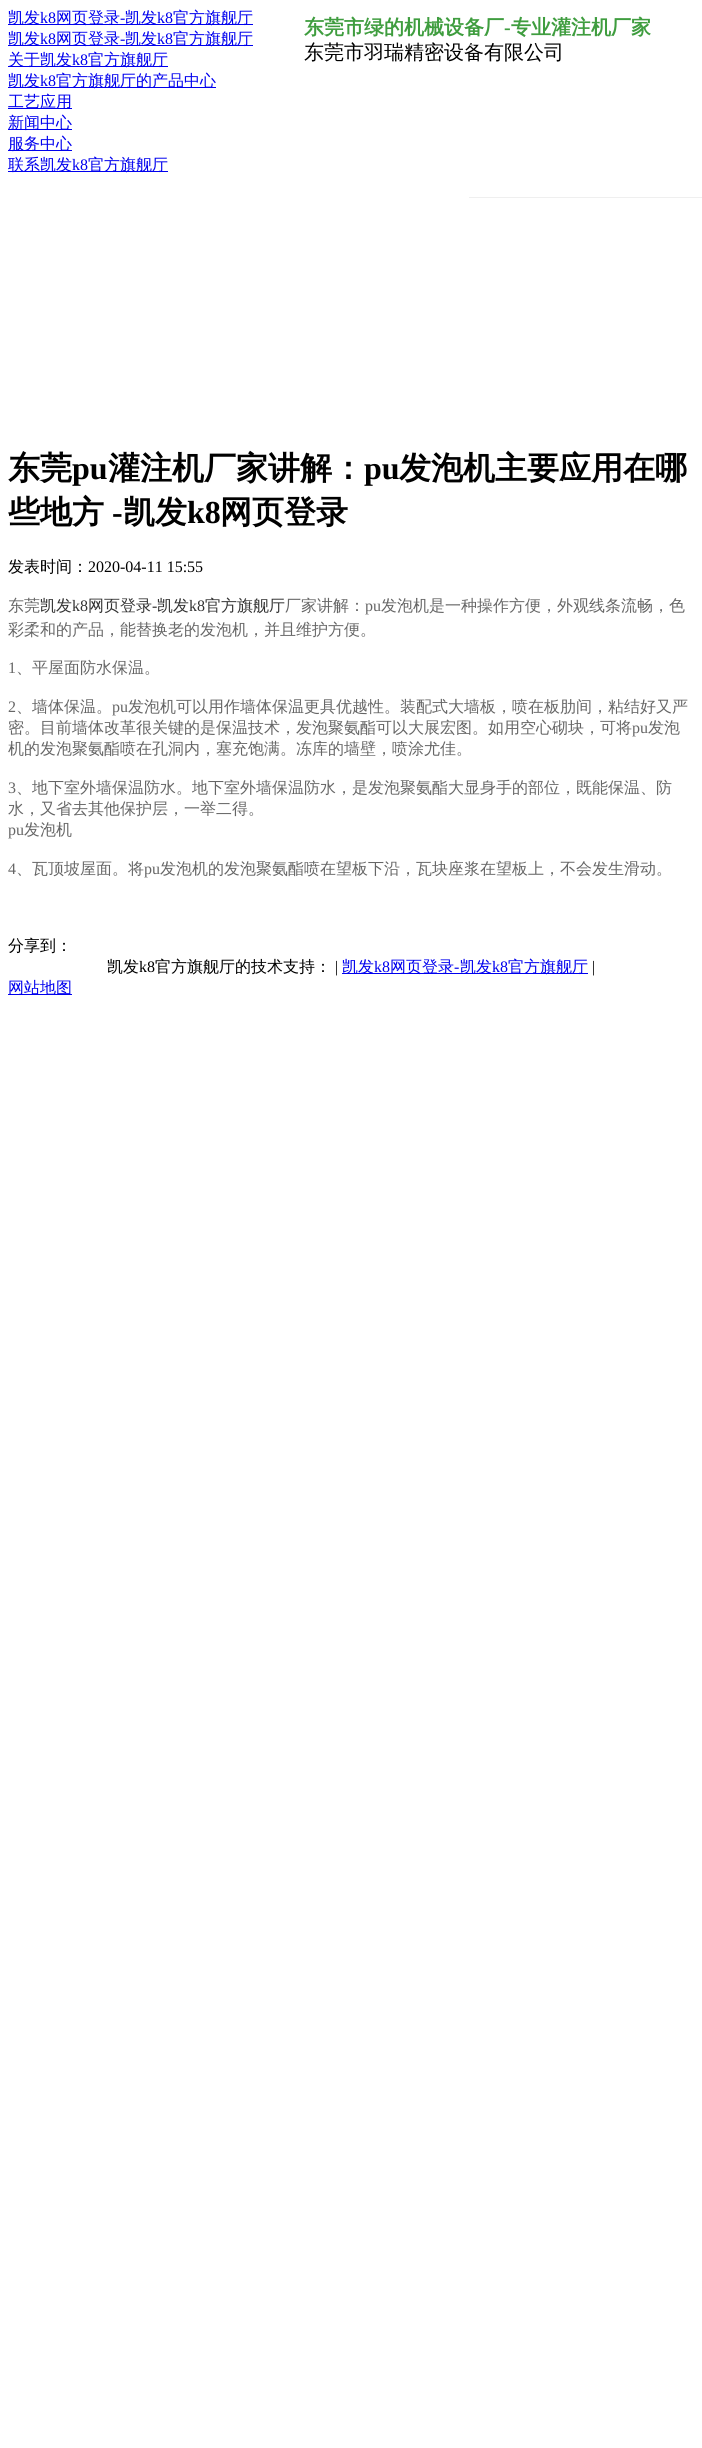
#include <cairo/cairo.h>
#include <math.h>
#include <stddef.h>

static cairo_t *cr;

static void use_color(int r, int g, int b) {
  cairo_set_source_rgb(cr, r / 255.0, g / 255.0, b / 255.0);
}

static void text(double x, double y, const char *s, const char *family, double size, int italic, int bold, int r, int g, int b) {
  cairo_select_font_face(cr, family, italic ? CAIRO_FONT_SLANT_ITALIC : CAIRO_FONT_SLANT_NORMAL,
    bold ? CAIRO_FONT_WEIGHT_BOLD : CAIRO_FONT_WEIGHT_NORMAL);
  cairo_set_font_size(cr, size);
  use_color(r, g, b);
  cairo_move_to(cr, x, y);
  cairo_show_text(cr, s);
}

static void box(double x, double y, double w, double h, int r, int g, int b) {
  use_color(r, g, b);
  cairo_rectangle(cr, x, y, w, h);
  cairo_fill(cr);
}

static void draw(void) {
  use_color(255, 255, 255);
  cairo_paint(cr);
  box(8, 24, 245, 1, 0, 0, 238);
  box(8, 45, 245, 1, 0, 0, 238);
  box(8, 66, 160, 1, 0, 0, 238);
  box(8, 87, 208, 1, 0, 0, 238);
  box(8, 108, 64, 1, 0, 0, 238);
  box(8, 129, 64, 1, 0, 0, 238);
  box(8, 150, 64, 1, 0, 0, 238);
  box(8, 171, 160, 1, 0, 0, 238);
  box(469, 197, 233, 1, 239, 239, 239);
  box(342, 973, 246, 1, 0, 0, 238);
  box(8, 994, 64, 1, 0, 0, 238);
  text(8, 23, "凯发", "WenQuanYi Zen Hei Medium", 16, 0, 0, 0, 0, 238);
  text(40, 23, "k8", "Liberation Serif", 16, 0, 0, 0, 0, 238);
  text(56, 23, "网页登录", "WenQuanYi Zen Hei Medium", 16, 0, 0, 0, 0, 238);
  text(120, 23, "-", "Liberation Serif", 16, 0, 0, 0, 0, 238);
  text(125, 23, "凯发", "WenQuanYi Zen Hei Medium", 16, 0, 0, 0, 0, 238);
  text(157, 23, "k8", "Liberation Serif", 16, 0, 0, 0, 0, 238);
  text(173, 23, "官方旗舰厅", "WenQuanYi Zen Hei Medium", 16, 0, 0, 0, 0, 238);
  text(304, 34, "东莞市绿的机械设备厂", "WenQuanYi Zen Hei", 20, 0, 1, 63, 157, 63);
  text(504, 34, "-", "Liberation Serif", 20, 0, 1, 63, 157, 63);
  text(511, 34, "专业灌注机厂家", "WenQuanYi Zen Hei", 20, 0, 1, 63, 157, 63);
  text(304, 59, "东莞市羽瑞精密设备有限公司", "WenQuanYi Zen Hei Medium", 20, 0, 0, 0, 0, 0);
  text(8, 44, "凯发", "WenQuanYi Zen Hei Medium", 16, 0, 0, 0, 0, 238);
  text(40, 44, "k8", "Liberation Serif", 16, 0, 0, 0, 0, 238);
  text(56, 44, "网页登录", "WenQuanYi Zen Hei Medium", 16, 0, 0, 0, 0, 238);
  text(120, 44, "-", "Liberation Serif", 16, 0, 0, 0, 0, 238);
  text(125, 44, "凯发", "WenQuanYi Zen Hei Medium", 16, 0, 0, 0, 0, 238);
  text(157, 44, "k8", "Liberation Serif", 16, 0, 0, 0, 0, 238);
  text(173, 44, "官方旗舰厅", "WenQuanYi Zen Hei Medium", 16, 0, 0, 0, 0, 238);
  text(8, 65, "关于凯发", "WenQuanYi Zen Hei Medium", 16, 0, 0, 0, 0, 238);
  text(72, 65, "k8", "Liberation Serif", 16, 0, 0, 0, 0, 238);
  text(88, 65, "官方旗舰厅", "WenQuanYi Zen Hei Medium", 16, 0, 0, 0, 0, 238);
  text(8, 86, "凯发", "WenQuanYi Zen Hei Medium", 16, 0, 0, 0, 0, 238);
  text(40, 86, "k8", "Liberation Serif", 16, 0, 0, 0, 0, 238);
  text(56, 86, "官方旗舰厅的产品中心", "WenQuanYi Zen Hei Medium", 16, 0, 0, 0, 0, 238);
  text(8, 107, "工艺应用", "WenQuanYi Zen Hei Medium", 16, 0, 0, 0, 0, 238);
  text(8, 128, "新闻中心", "WenQuanYi Zen Hei Medium", 16, 0, 0, 0, 0, 238);
  text(8, 149, "服务中心", "WenQuanYi Zen Hei Medium", 16, 0, 0, 0, 0, 238);
  text(8, 170, "联系凯发", "WenQuanYi Zen Hei Medium", 16, 0, 0, 0, 0, 238);
  text(72, 170, "k8", "Liberation Serif", 16, 0, 0, 0, 0, 238);
  text(88, 170, "官方旗舰厅", "WenQuanYi Zen Hei Medium", 16, 0, 0, 0, 0, 238);
  text(469, 49, "-", "Liberation Serif", 16, 0, 0, 239, 239, 239);
  text(107, 972, "凯发", "WenQuanYi Zen Hei Medium", 16, 0, 0, 0, 0, 0);
  text(139, 972, "k8", "Liberation Serif", 16, 0, 0, 0, 0, 0);
  text(155, 972, "官方旗舰厅的技术支持：", "WenQuanYi Zen Hei Medium", 16, 0, 0, 0, 0, 0);
  text(335, 972, "|", "Liberation Serif", 16, 0, 0, 0, 0, 0);
  text(342, 972, "凯发", "WenQuanYi Zen Hei Medium", 16, 0, 0, 0, 0, 238);
  text(374, 972, "k8", "Liberation Serif", 16, 0, 0, 0, 0, 238);
  text(390, 972, "网页登录", "WenQuanYi Zen Hei Medium", 16, 0, 0, 0, 0, 238);
  text(454, 972, "-", "Liberation Serif", 16, 0, 0, 0, 0, 238);
  text(460, 972, "凯发", "WenQuanYi Zen Hei Medium", 16, 0, 0, 0, 0, 238);
  text(492, 972, "k8", "Liberation Serif", 16, 0, 0, 0, 0, 238);
  text(508, 972, "官方旗舰厅", "WenQuanYi Zen Hei Medium", 16, 0, 0, 0, 0, 238);
  text(592, 972, "|", "Liberation Serif", 16, 0, 0, 0, 0, 0);
  text(8, 479, "东莞", "WenQuanYi Zen Hei", 32, 0, 1, 0, 0, 0);
  text(72, 479, "pu", "Liberation Serif", 32, 0, 1, 0, 0, 0);
  text(108, 479, "灌注机厂家讲解：", "WenQuanYi Zen Hei", 32, 0, 1, 0, 0, 0);
  text(364, 479, "pu", "Liberation Serif", 32, 0, 1, 0, 0, 0);
  text(399, 479, "发泡机主要应用在哪", "WenQuanYi Zen Hei", 32, 0, 1, 0, 0, 0);
  text(8, 523, "些地方", "WenQuanYi Zen Hei", 32, 0, 1, 0, 0, 0);
  text(112, 523, "-", "Liberation Serif", 32, 0, 1, 0, 0, 0);
  text(123, 523, "凯发", "WenQuanYi Zen Hei", 32, 0, 1, 0, 0, 0);
  text(187, 523, "k8", "Liberation Serif", 32, 0, 1, 0, 0, 0);
  text(220, 523, "网页登录", "WenQuanYi Zen Hei", 32, 0, 1, 0, 0, 0);
  text(8, 572, "发表时间：", "WenQuanYi Zen Hei Medium", 16, 0, 0, 0, 0, 0);
  text(88, 572, "2020-04-11 15:55", "Liberation Serif", 16, 0, 0, 0, 0, 0);
  text(8, 611, "东莞", "WenQuanYi Zen Hei Medium", 16, 0, 0, 102, 102, 102);
  text(40, 611, "凯发", "WenQuanYi Zen Hei Medium", 16, 0, 0, 51, 51, 51);
  text(72, 611, "k8", "Liberation Serif", 16, 0, 0, 51, 51, 51);
  text(88, 611, "网页登录", "WenQuanYi Zen Hei Medium", 16, 0, 0, 51, 51, 51);
  text(152, 611, "-", "Liberation Serif", 16, 0, 0, 51, 51, 51);
  text(157, 611, "凯发", "WenQuanYi Zen Hei Medium", 16, 0, 0, 51, 51, 51);
  text(189, 611, "k8", "Liberation Serif", 16, 0, 0, 51, 51, 51);
  text(205, 611, "官方旗舰厅", "WenQuanYi Zen Hei Medium", 16, 0, 0, 51, 51, 51);
  text(285, 611, "厂家讲解：", "WenQuanYi Zen Hei Medium", 16, 0, 0, 102, 102, 102);
  text(365, 611, "pu", "Liberation Serif", 16, 0, 0, 102, 102, 102);
  text(381, 611, "发泡机是一种操作方便，外观线条流畅，色", "WenQuanYi Zen Hei Medium", 16, 0, 0, 102, 102, 102);
  text(8, 635, "彩柔和的产品，能替换老的发泡机，并且维护方便。", "WenQuanYi Zen Hei Medium", 16, 0, 0, 102, 102, 102);
  text(8, 673, "1", "Liberation Serif", 16, 0, 0, 102, 102, 102);
  text(16, 673, "、平屋面防水保温。", "WenQuanYi Zen Hei Medium", 16, 0, 0, 102, 102, 102);
  text(8, 712, "2", "Liberation Serif", 16, 0, 0, 102, 102, 102);
  text(16, 712, "、墙体保温。", "WenQuanYi Zen Hei Medium", 16, 0, 0, 102, 102, 102);
  text(112, 712, "pu", "Liberation Serif", 16, 0, 0, 102, 102, 102);
  text(128, 712, "发泡机可以用作墙体保温更具优越性。装配式大墙板，喷在板肋间，粘结好又严", "WenQuanYi Zen Hei Medium", 16, 0, 0, 102, 102, 102);
  text(8, 733, "密。目前墙体改革很关键的是保温技术，发泡聚氨酯可以大展宏图。如用空心砌块，可将", "WenQuanYi Zen Hei Medium", 16, 0, 0, 102, 102, 102);
  text(632, 733, "pu", "Liberation Serif", 16, 0, 0, 102, 102, 102);
  text(648, 733, "发泡", "WenQuanYi Zen Hei Medium", 16, 0, 0, 102, 102, 102);
  text(8, 754, "机的发泡聚氨酯喷在孔洞内，塞充饱满。冻库的墙壁，喷涂尤佳。", "WenQuanYi Zen Hei Medium", 16, 0, 0, 102, 102, 102);
  text(8, 793, "3", "Liberation Serif", 16, 0, 0, 102, 102, 102);
  text(16, 793, "、地下室外墙保温防水。地下室外墙保温防水，是发泡聚氨酯大显身手的部位，既能保温、防", "WenQuanYi Zen Hei Medium", 16, 0, 0, 102, 102, 102);
  text(8, 814, "水，又省去其他保护层，一举二得。", "WenQuanYi Zen Hei Medium", 16, 0, 0, 102, 102, 102);
  text(8, 835, "pu", "Liberation Serif", 16, 0, 0, 102, 102, 102);
  text(24, 835, "发泡机", "WenQuanYi Zen Hei Medium", 16, 0, 0, 102, 102, 102);
  text(8, 874, "4", "Liberation Serif", 16, 0, 0, 102, 102, 102);
  text(16, 874, "、瓦顶坡屋面。将", "WenQuanYi Zen Hei Medium", 16, 0, 0, 102, 102, 102);
  text(144, 874, "pu", "Liberation Serif", 16, 0, 0, 102, 102, 102);
  text(160, 874, "发泡机的发泡聚氨酯喷在望板下沿，瓦块座浆在望板上，不会发生滑动。", "WenQuanYi Zen Hei Medium", 16, 0, 0, 102, 102, 102);
  text(8, 951, "分享到：", "WenQuanYi Zen Hei Medium", 16, 0, 0, 0, 0, 0);
  text(8, 993, "网站地图", "WenQuanYi Zen Hei Medium", 16, 0, 0, 0, 0, 238);
}

int main(void) {
  cairo_surface_t *surface = cairo_image_surface_create(CAIRO_FORMAT_RGB24, 702, 2448);
  cr = cairo_create(surface);
  cairo_font_options_t *options = cairo_font_options_create();
  cairo_font_options_set_hint_metrics(options, CAIRO_HINT_METRICS_OFF);
  cairo_font_options_set_hint_style(options, CAIRO_HINT_STYLE_NONE);
  cairo_set_font_options(cr, options);
  cairo_set_miter_limit(cr, 4);
  draw();
  cairo_surface_write_to_png(surface, "out.png");
  cairo_font_options_destroy(options);
  cairo_destroy(cr);
  cairo_surface_destroy(surface);
  return 0;
}
